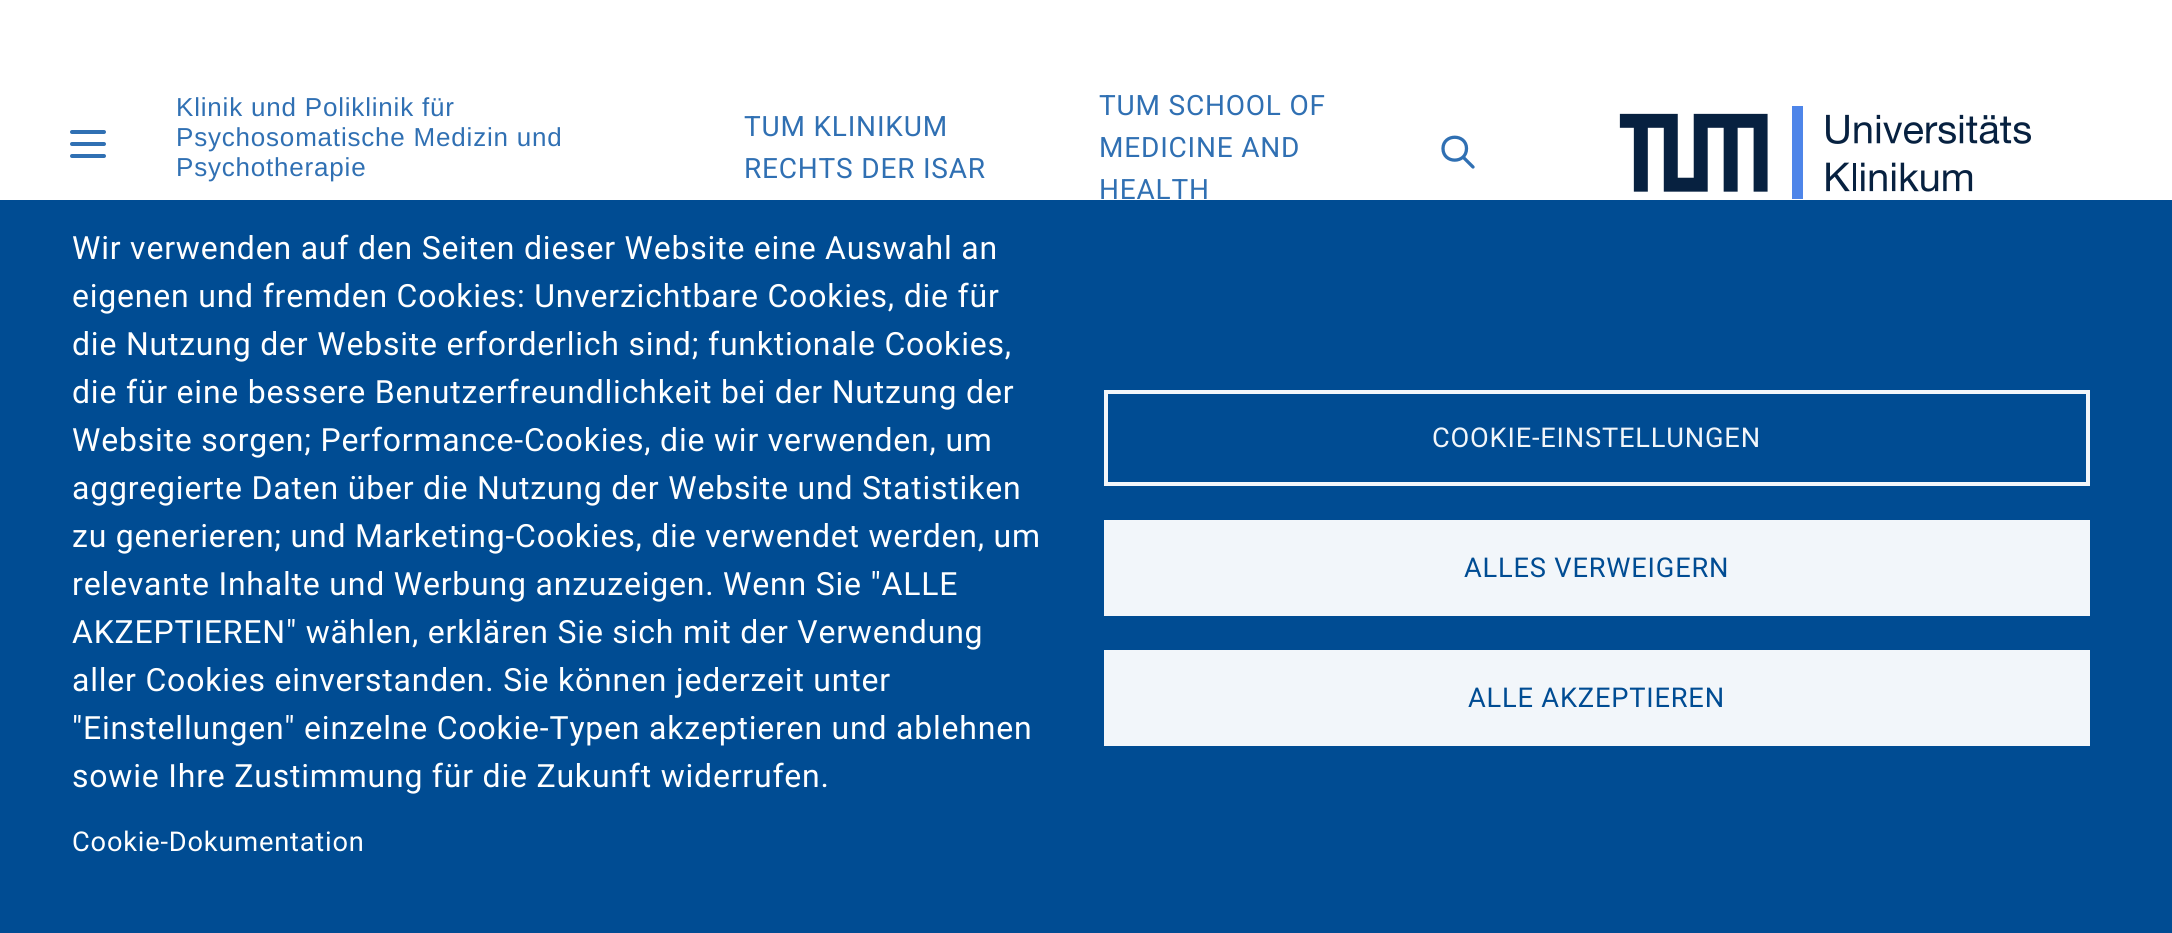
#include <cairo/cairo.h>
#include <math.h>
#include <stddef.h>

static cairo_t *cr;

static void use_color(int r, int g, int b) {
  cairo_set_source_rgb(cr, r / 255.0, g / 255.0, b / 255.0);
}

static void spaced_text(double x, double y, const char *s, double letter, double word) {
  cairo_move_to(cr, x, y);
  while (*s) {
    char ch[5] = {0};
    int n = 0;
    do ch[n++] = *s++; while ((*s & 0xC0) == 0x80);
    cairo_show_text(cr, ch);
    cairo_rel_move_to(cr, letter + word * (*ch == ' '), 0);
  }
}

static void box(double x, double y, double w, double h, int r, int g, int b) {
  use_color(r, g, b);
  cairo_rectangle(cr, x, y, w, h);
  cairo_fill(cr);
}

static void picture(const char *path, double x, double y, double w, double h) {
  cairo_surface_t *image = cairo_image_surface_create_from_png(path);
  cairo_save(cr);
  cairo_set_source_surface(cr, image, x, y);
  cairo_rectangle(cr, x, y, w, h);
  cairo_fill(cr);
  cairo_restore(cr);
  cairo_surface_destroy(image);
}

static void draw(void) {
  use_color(255, 255, 255);
  cairo_paint(cr);
  cairo_new_path(cr);
  cairo_move_to(cr, 72, 132);
  cairo_line_to(cr, 104, 132);
  cairo_move_to(cr, 72, 144);
  cairo_line_to(cr, 104, 144);
  cairo_move_to(cr, 72, 156);
  cairo_line_to(cr, 104, 156);
  use_color(48, 112, 179);
  cairo_set_line_width(cr, 4);
  cairo_set_line_cap(cr, CAIRO_LINE_CAP_ROUND);
  cairo_set_line_join(cr, CAIRO_LINE_JOIN_ROUND);
  cairo_stroke(cr);
  cairo_new_path(cr);
  cairo_move_to(cr, 1473, 167);
  cairo_line_to(cr, 1463, 157);
  cairo_move_to(cr, 1466.5, 148.5);
  cairo_curve_to(cr, 1466.5, 164, 1443, 164, 1443, 148.5);
  cairo_curve_to(cr, 1443, 133.5, 1466.5, 133.5, 1466.5, 148.5);
  cairo_close_path(cr);
  cairo_set_line_width(cr, 3.3);
  cairo_stroke(cr);
  picture("img_01.png", 1619, 106, 412, 93);
  box(0, 200, 2172, 733, 0, 76, 147);
  cairo_rectangle(cr, 1106, 392, 982, 92);
  use_color(242, 246, 250);
  cairo_set_line_width(cr, 4);
  cairo_set_line_cap(cr, CAIRO_LINE_CAP_BUTT);
  cairo_set_line_join(cr, CAIRO_LINE_JOIN_MITER);
  cairo_stroke(cr);
  box(1104, 520, 986, 96, 242, 246, 250);
  box(1104, 650, 986, 96, 242, 246, 250);
  cairo_select_font_face(cr, "Liberation Sans", CAIRO_FONT_SLANT_NORMAL, CAIRO_FONT_WEIGHT_NORMAL);
  cairo_set_font_size(cr, 26);
  use_color(48, 112, 179);
  spaced_text(176, 116, "Klinik und Poliklinik für", 0.8, 0);
  spaced_text(176, 146, "Psychosomatische Medizin und", 0.8, 0);
  spaced_text(176, 176, "Psychotherapie", 0.8, 0);
  cairo_select_font_face(cr, "Roboto", CAIRO_FONT_SLANT_NORMAL, CAIRO_FONT_WEIGHT_NORMAL);
  cairo_set_font_size(cr, 28);
  spaced_text(744, 136, "TUM KLINIKUM", 0.8, 0);
  spaced_text(744, 178, "RECHTS DER ISAR", 0.8, 0);
  spaced_text(1099, 115, "TUM SCHOOL OF", 0.8, 0);
  spaced_text(1099, 157, "MEDICINE AND", 0.8, 0);
  spaced_text(1099, 199, "HEALTH", 0.8, 0);
  cairo_select_font_face(cr, "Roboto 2", CAIRO_FONT_SLANT_NORMAL, CAIRO_FONT_WEIGHT_NORMAL);
  cairo_set_font_size(cr, 32);
  use_color(255, 255, 255);
  spaced_text(72, 259, "Wir verwenden auf den Seiten dieser Website eine Auswahl an", 0.8, 0);
  spaced_text(72, 307, "eigenen und fremden Cookies: Unverzichtbare Cookies, die für", 0.8, 0);
  spaced_text(72, 355, "die Nutzung der Website erforderlich sind; funktionale Cookies,", 0.8, 0);
  spaced_text(72, 403, "die für eine bessere Benutzerfreundlichkeit bei der Nutzung der", 0.8, 0);
  spaced_text(72, 451, "Website sorgen; Performance-Cookies, die wir verwenden, um", 0.8, 0);
  spaced_text(72, 499, "aggregierte Daten über die Nutzung der Website und Statistiken", 0.8, 0);
  spaced_text(72, 547, "zu generieren; und Marketing-Cookies, die verwendet werden, um", 0.8, 0);
  spaced_text(72, 595, "relevante Inhalte und Werbung anzuzeigen. Wenn Sie \"ALLE", 0.8, 0);
  spaced_text(72, 643, "AKZEPTIEREN\" wählen, erklären Sie sich mit der Verwendung", 0.8, 0);
  spaced_text(72, 691, "aller Cookies einverstanden. Sie können jederzeit unter", 0.8, 0);
  spaced_text(72, 739, "\"Einstellungen\" einzelne Cookie-Typen akzeptieren und ablehnen", 0.8, 0);
  spaced_text(72, 787, "sowie Ihre Zustimmung für die Zukunft widerrufen.", 0.8, 0);
  cairo_set_font_size(cr, 27.25);
  spaced_text(72, 851, "Cookie-Dokumentation", 0.8, 0);
  use_color(242, 246, 250);
  spaced_text(1432, 447, "COOKIE-EINSTELLUNGEN", 0.8, 0);
  use_color(0, 76, 147);
  spaced_text(1464, 577, "ALLES VERWEIGERN", 0.8, 0);
  spaced_text(1468, 707, "ALLE AKZEPTIEREN", 0.8, 0);
}

int main(void) {
  cairo_surface_t *surface = cairo_image_surface_create(CAIRO_FORMAT_RGB24, 2172, 933);
  cr = cairo_create(surface);
  cairo_font_options_t *options = cairo_font_options_create();
  cairo_font_options_set_hint_metrics(options, CAIRO_HINT_METRICS_OFF);
  cairo_font_options_set_hint_style(options, CAIRO_HINT_STYLE_NONE);
  cairo_set_font_options(cr, options);
  cairo_set_miter_limit(cr, 4);
  draw();
  cairo_surface_write_to_png(surface, "out.png");
  cairo_font_options_destroy(options);
  cairo_destroy(cr);
  cairo_surface_destroy(surface);
  return 0;
}
